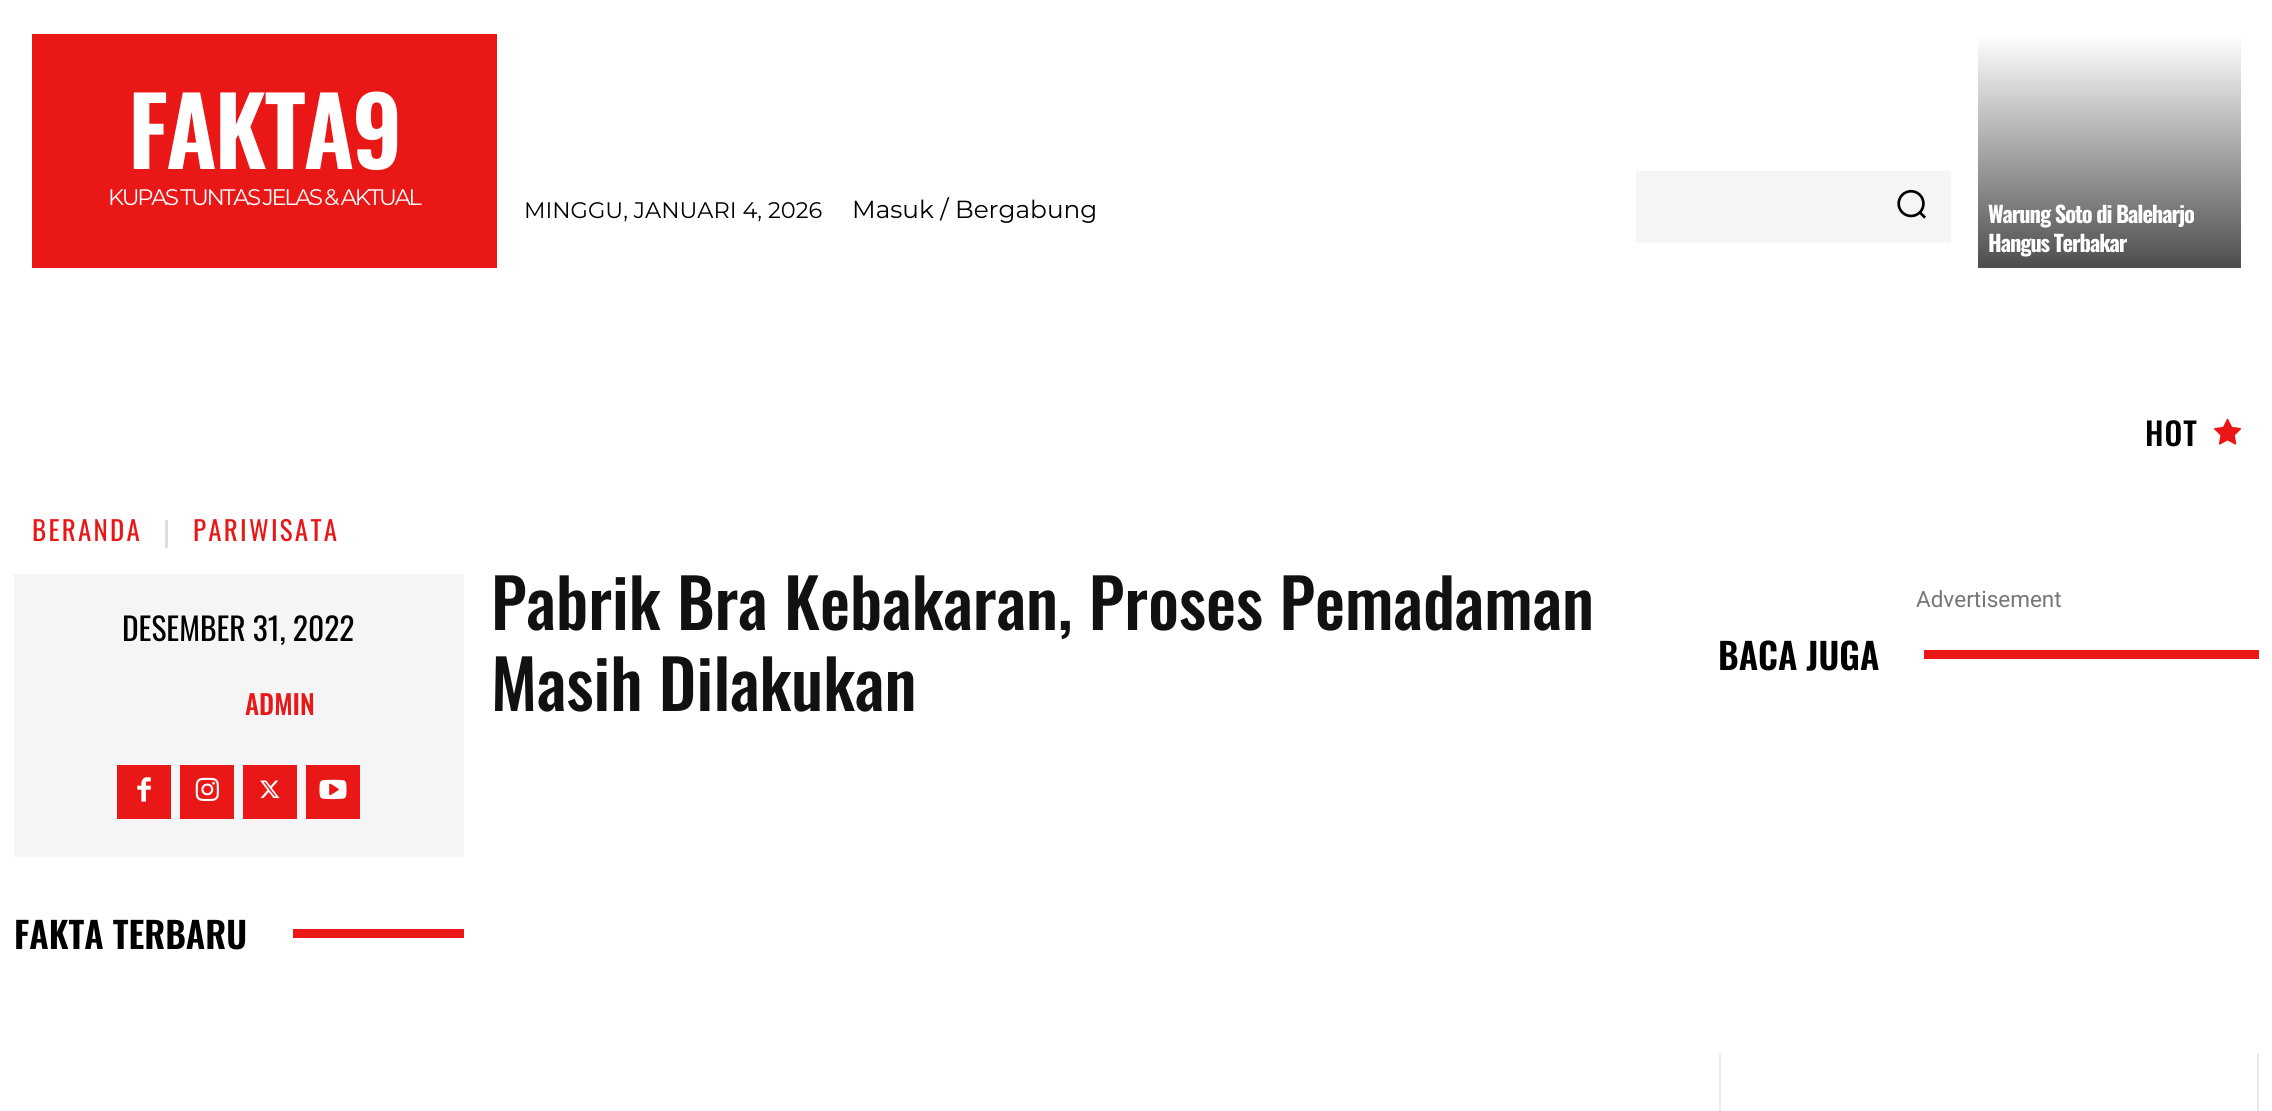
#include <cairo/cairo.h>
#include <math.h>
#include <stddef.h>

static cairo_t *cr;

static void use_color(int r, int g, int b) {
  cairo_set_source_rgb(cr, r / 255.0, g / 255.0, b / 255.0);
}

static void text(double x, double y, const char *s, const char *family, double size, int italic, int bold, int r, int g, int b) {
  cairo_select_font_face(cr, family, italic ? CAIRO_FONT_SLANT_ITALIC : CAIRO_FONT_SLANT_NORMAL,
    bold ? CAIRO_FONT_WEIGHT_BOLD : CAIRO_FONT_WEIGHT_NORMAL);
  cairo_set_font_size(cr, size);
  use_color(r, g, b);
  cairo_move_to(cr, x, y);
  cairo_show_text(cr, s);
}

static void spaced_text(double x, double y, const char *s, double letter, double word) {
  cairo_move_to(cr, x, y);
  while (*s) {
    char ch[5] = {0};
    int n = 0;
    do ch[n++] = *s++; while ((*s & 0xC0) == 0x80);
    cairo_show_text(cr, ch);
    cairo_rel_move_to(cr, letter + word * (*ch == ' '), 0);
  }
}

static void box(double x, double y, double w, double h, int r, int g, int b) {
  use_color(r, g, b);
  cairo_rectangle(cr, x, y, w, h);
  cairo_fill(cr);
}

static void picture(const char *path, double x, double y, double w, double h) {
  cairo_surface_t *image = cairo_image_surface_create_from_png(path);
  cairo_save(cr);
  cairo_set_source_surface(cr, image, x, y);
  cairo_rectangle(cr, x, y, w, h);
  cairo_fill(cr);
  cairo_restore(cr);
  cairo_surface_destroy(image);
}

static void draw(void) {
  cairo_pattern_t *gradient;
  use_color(255, 255, 255);
  cairo_paint(cr);
  box(32, 34, 465, 234, 234, 23, 23);
  box(1636, 171, 315, 72, 245, 245, 245);
  picture("img_01.png", 1897, 189, 29, 30);
  gradient = cairo_pattern_create_linear(2109, 268, 2109, 34);
  cairo_pattern_add_color_stop_rgba(gradient, 0, 0.302, 0.302, 0.302, 1);
  cairo_pattern_add_color_stop_rgba(gradient, 1, 1, 1, 1, 1);
  cairo_set_source(cr, gradient);
  cairo_pattern_destroy(gradient);
  cairo_rectangle(cr, 1978, 37, 263, 231);
  cairo_fill(cr);
  picture("img_02.png", 2214, 418, 28, 27);
  box(165, 520, 3, 28, 221, 221, 221);
  box(14, 574, 450, 283, 245, 245, 245);
  box(117, 765, 54, 54, 234, 23, 23);
  picture("img_03.png", 137, 777, 14, 25);
  box(180, 765, 54, 54, 234, 23, 23);
  picture("img_04.png", 195, 777, 24, 24);
  box(243, 765, 54, 54, 234, 23, 23);
  picture("img_05.png", 260, 780, 20, 19);
  box(306, 765, 54, 54, 234, 23, 23);
  picture("img_06.png", 319, 779, 28, 21);
  box(293, 929, 171, 9, 234, 23, 23);
  box(1924, 650, 335, 9, 234, 23, 23);
  box(2257, 1053, 2, 58, 234, 234, 234);
  box(1719, 1053, 2, 58, 234, 234, 234);
  cairo_select_font_face(cr, "Oswald SemiBold", CAIRO_FONT_SLANT_NORMAL, CAIRO_FONT_WEIGHT_NORMAL);
  cairo_set_font_size(cr, 94.5);
  use_color(255, 255, 255);
  spaced_text(128, 169, "FAKTA9", -2.25, 0);
  cairo_select_font_face(cr, "Montserrat", CAIRO_FONT_SLANT_NORMAL, CAIRO_FONT_WEIGHT_NORMAL);
  cairo_set_font_size(cr, 22.5);
  spaced_text(108, 205, "KUPAS TUNTAS JELAS & AKTUAL", -2.25, 0);
  text(524, 218, "MINGGU, JANUARI 4, 2026", "Montserrat", 22.5, 0, 0, 0, 0, 0);
  text(852, 218, "Masuk / Bergabung", "Montserrat", 24.75, 0, 0, 0, 0, 0);
  cairo_select_font_face(cr, "Oswald", CAIRO_FONT_SLANT_NORMAL, CAIRO_FONT_WEIGHT_BOLD);
  cairo_set_font_size(cr, 22.5);
  use_color(255, 255, 255);
  spaced_text(1988, 223, "Warung Soto di Baleharjo", -1.1, 0);
  spaced_text(1988, 252, "Hangus Terbakar", -1.1, 0);
  cairo_select_font_face(cr, "Oswald Medium", CAIRO_FONT_SLANT_NORMAL, CAIRO_FONT_WEIGHT_NORMAL);
  cairo_set_font_size(cr, 31.5);
  use_color(0, 0, 0);
  spaced_text(2145, 446, "HOT", 1, 0);
  cairo_select_font_face(cr, "Oswald", CAIRO_FONT_SLANT_NORMAL, CAIRO_FONT_WEIGHT_NORMAL);
  cairo_set_font_size(cr, 27);
  use_color(234, 23, 23);
  spaced_text(32, 541, "BERANDA", 2.25, 0);
  spaced_text(193, 541, "PARIWISATA", 2.25, 0);
  text(122, 641, "DESEMBER 31, 2022", "Oswald", 31.5, 0, 0, 0, 0, 0);
  text(245, 715, "ADMIN", "Oswald Medium", 27, 0, 0, 234, 23, 23);
  text(14, 949, "FAKTA TERBARU", "Oswald SemiBold", 36, 0, 0, 0, 0, 0);
  text(491, 630, "Pabrik Bra Kebakaran, Proses Pemadaman", "Oswald Medium", 67.5, 0, 0, 17, 17, 17);
  text(491, 711, "Masih Dilakukan", "Oswald Medium", 67.5, 0, 0, 17, 17, 17);
  text(1916, 607, "Advertisement", "Roboto", 22.5, 0, 0, 118, 118, 118);
  text(1718, 670, "BACA JUGA", "Oswald SemiBold", 36, 0, 0, 0, 0, 0);
}

int main(void) {
  cairo_surface_t *surface = cairo_image_surface_create(CAIRO_FORMAT_RGB24, 2272, 1111);
  cr = cairo_create(surface);
  cairo_font_options_t *options = cairo_font_options_create();
  cairo_font_options_set_hint_metrics(options, CAIRO_HINT_METRICS_OFF);
  cairo_font_options_set_hint_style(options, CAIRO_HINT_STYLE_NONE);
  cairo_set_font_options(cr, options);
  cairo_set_miter_limit(cr, 4);
  draw();
  cairo_surface_write_to_png(surface, "out.png");
  cairo_font_options_destroy(options);
  cairo_destroy(cr);
  cairo_surface_destroy(surface);
  return 0;
}
